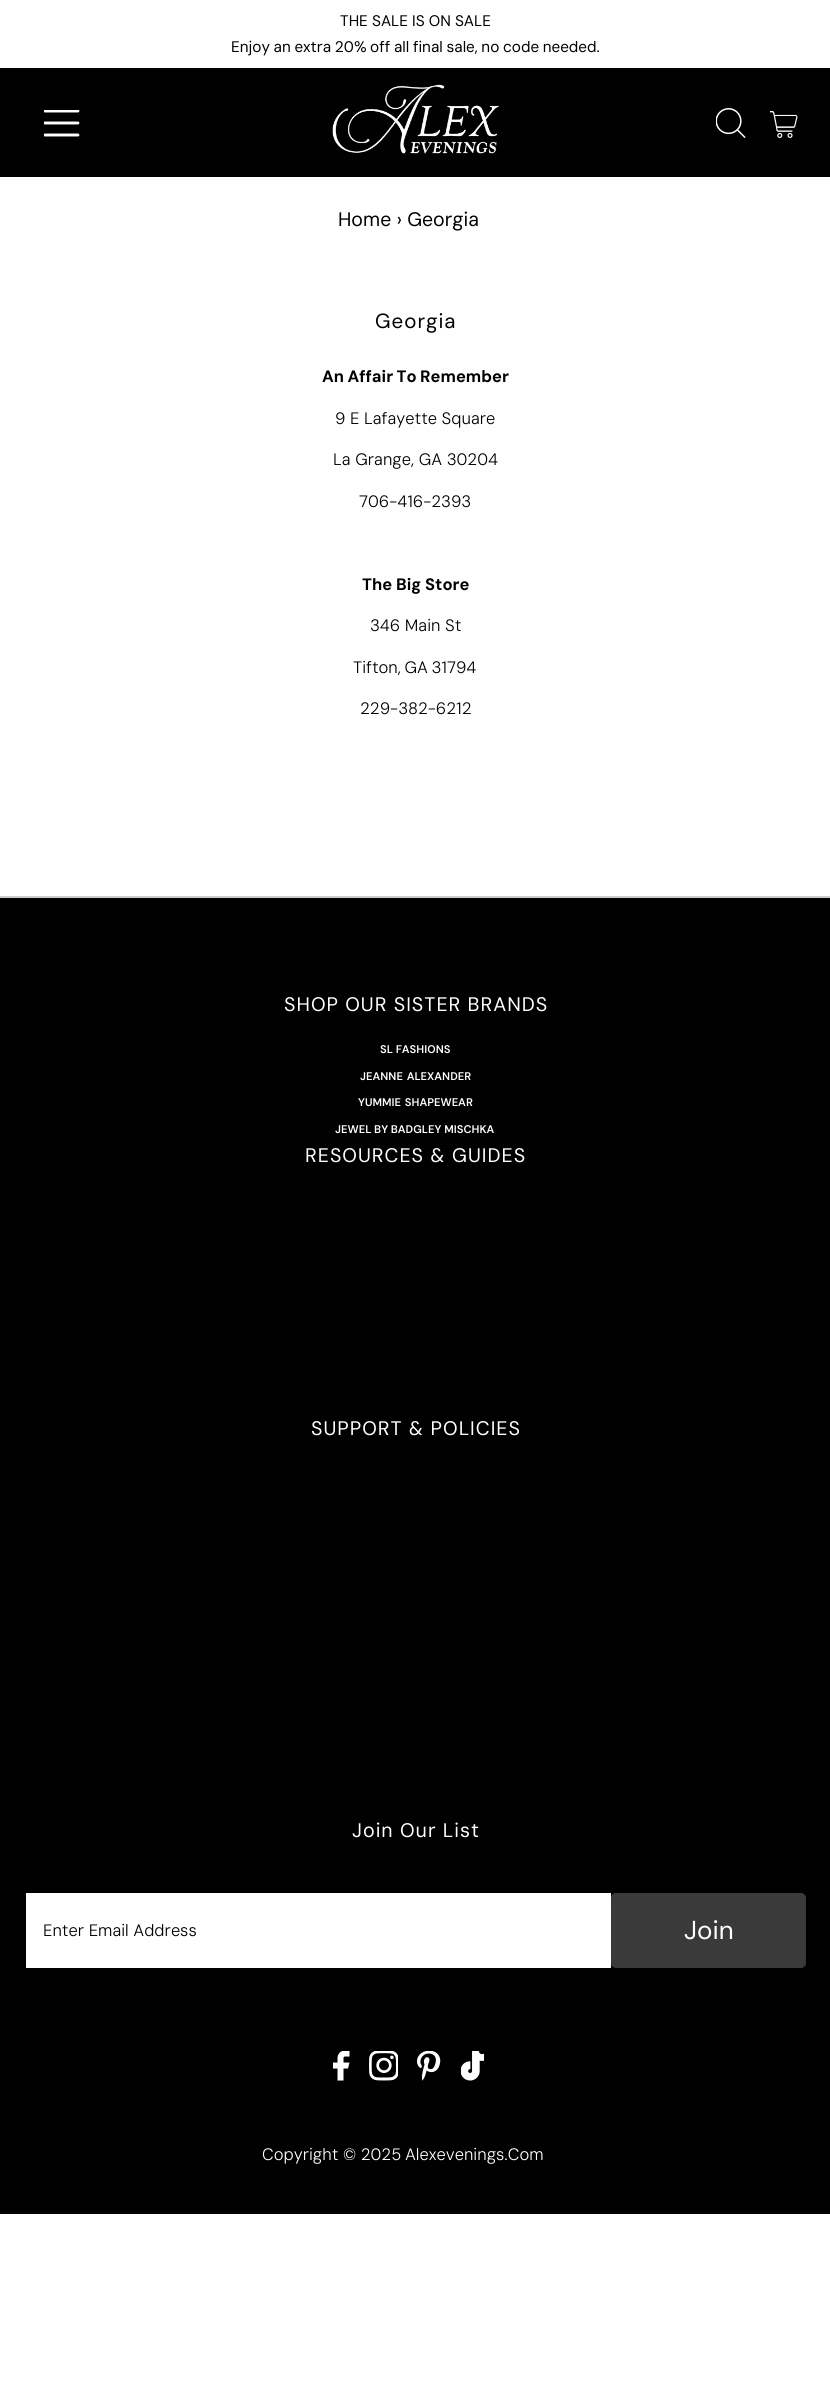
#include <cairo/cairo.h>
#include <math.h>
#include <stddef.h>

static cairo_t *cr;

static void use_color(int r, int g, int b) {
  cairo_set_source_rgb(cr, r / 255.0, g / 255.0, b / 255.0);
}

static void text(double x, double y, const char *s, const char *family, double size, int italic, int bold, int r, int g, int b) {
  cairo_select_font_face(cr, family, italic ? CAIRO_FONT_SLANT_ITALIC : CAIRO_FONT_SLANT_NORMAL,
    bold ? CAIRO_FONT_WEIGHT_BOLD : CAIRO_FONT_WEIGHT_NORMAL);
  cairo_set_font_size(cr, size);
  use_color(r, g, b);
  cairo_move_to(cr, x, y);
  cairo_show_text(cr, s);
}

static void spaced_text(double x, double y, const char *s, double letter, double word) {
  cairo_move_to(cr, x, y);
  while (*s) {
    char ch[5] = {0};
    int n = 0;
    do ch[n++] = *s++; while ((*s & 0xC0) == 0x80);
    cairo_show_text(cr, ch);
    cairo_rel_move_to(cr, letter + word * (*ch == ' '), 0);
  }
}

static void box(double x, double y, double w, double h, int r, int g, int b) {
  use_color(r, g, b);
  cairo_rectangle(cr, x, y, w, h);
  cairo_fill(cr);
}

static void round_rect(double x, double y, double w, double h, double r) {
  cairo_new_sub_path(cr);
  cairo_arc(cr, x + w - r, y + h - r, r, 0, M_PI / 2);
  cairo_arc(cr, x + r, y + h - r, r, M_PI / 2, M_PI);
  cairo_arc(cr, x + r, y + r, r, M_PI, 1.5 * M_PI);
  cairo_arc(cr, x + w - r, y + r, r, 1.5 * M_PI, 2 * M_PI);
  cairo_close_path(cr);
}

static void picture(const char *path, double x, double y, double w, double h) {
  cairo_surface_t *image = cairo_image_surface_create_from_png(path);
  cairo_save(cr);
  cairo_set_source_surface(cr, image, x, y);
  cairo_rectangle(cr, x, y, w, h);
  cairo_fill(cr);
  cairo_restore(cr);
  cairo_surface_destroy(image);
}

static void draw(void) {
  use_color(255, 255, 255);
  cairo_paint(cr);
  box(0, 68, 830, 109, 0, 0, 0);
  picture("img_01.png", 44, 110, 36, 27);
  picture("img_02.png", 332, 84, 167, 70);
  picture("img_03.png", 716, 108, 30, 30);
  picture("img_04.png", 770, 111, 28, 27);
  box(0, 898, 830, 1316, 0, 0, 0);
  box(0, 896, 830, 2, 204, 204, 204);
  box(26, 1893, 585, 75, 255, 255, 255);
  use_color(58, 58, 58);
  round_rect(611, 1893, 195, 75, 5);
  cairo_fill(cr);
  picture("img_05.png", 333, 2051, 17, 30);
  picture("img_06.png", 369, 2051, 29, 30);
  picture("img_07.png", 417, 2051, 24, 30);
  picture("img_08.png", 461, 2051, 24, 30);
  text(340, 26, "THE SALE IS ON SALE", "DM Sans", 15.3, 0, 0, 0, 0, 0);
  spaced_text(231, 52, "Enjoy an extra 20% off all final sale, no code needed.", 0, -0.5);
  text(338, 226, "Home › Georgia", "DM Sans", 19.5, 0, 0, 0, 0, 0);
  cairo_select_font_face(cr, "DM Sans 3", CAIRO_FONT_SLANT_NORMAL, CAIRO_FONT_WEIGHT_NORMAL);
  cairo_set_font_size(cr, 20.5);
  spaced_text(375, 328, "Georgia", 1, 0);
  cairo_select_font_face(cr, "DM Sans", CAIRO_FONT_SLANT_NORMAL, CAIRO_FONT_WEIGHT_BOLD);
  cairo_set_font_size(cr, 16.5);
  spaced_text(322, 382, "An Affair To Remember", 0, -0.5);
  text(335, 424, "9 E Lafayette Square", "DM Sans Light", 16.5, 0, 0, 0, 0, 0);
  text(333, 465, "La Grange, GA 30204", "DM Sans Light", 16.5, 0, 0, 0, 0, 0);
  text(359, 507, "706-416-2393", "DM Sans Light", 16.5, 0, 0, 0, 0, 0);
  text(362, 590, "The Big Store", "DM Sans", 16.5, 0, 1, 0, 0, 0);
  text(370, 631, "346 Main St", "DM Sans Light", 16.5, 0, 0, 0, 0, 0);
  spaced_text(353, 673, "Tifton, GA 31794", 0, -1);
  text(360, 714, "229-382-6212", "DM Sans Light", 16.5, 0, 0, 0, 0, 0);
  cairo_select_font_face(cr, "DM Sans", CAIRO_FONT_SLANT_NORMAL, CAIRO_FONT_WEIGHT_NORMAL);
  cairo_set_font_size(cr, 19.6);
  use_color(255, 255, 255);
  spaced_text(284, 1011, "SHOP OUR SISTER BRANDS", 1, 0);
  text(380, 1053, "SL FASHIONS", "DM Sans SemiBold", 11.1, 0, 0, 255, 255, 255);
  spaced_text(360, 1080, "JEANNE ALEXANDER", 0, 1);
  spaced_text(358, 1106, "YUMMIE SHAPEWEAR", 0, 1);
  text(335, 1133, "JEWEL BY BADGLEY MISCHKA", "DM Sans SemiBold", 11.1, 0, 0, 255, 255, 255);
  cairo_select_font_face(cr, "DM Sans", CAIRO_FONT_SLANT_NORMAL, CAIRO_FONT_WEIGHT_NORMAL);
  cairo_set_font_size(cr, 19.6);
  spaced_text(305, 1162, "RESOURCES & GUIDES", 1, 0);
  spaced_text(311, 1435, "SUPPORT & POLICIES", 1, 0);
  spaced_text(352, 1837, "Join Our List", 1, 0);
  text(43, 1936, "Enter Email Address", "DM Sans Light", 16.5, 0, 0, 0, 0, 0);
  text(684, 1939, "Join", "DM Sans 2", 26, 0, 0, 255, 255, 255);
  text(262, 2160, "Copyright © 2025", "DM Sans Light", 16.5, 0, 0, 255, 255, 255);
  text(405, 2160, "Alexevenings.Com", "DM Sans Light", 16.5, 0, 0, 255, 255, 255);
}

int main(void) {
  cairo_surface_t *surface = cairo_image_surface_create(CAIRO_FORMAT_RGB24, 830, 2381);
  cr = cairo_create(surface);
  cairo_font_options_t *options = cairo_font_options_create();
  cairo_font_options_set_hint_metrics(options, CAIRO_HINT_METRICS_OFF);
  cairo_font_options_set_hint_style(options, CAIRO_HINT_STYLE_NONE);
  cairo_set_font_options(cr, options);
  cairo_set_miter_limit(cr, 4);
  draw();
  cairo_surface_write_to_png(surface, "out.png");
  cairo_font_options_destroy(options);
  cairo_destroy(cr);
  cairo_surface_destroy(surface);
  return 0;
}
